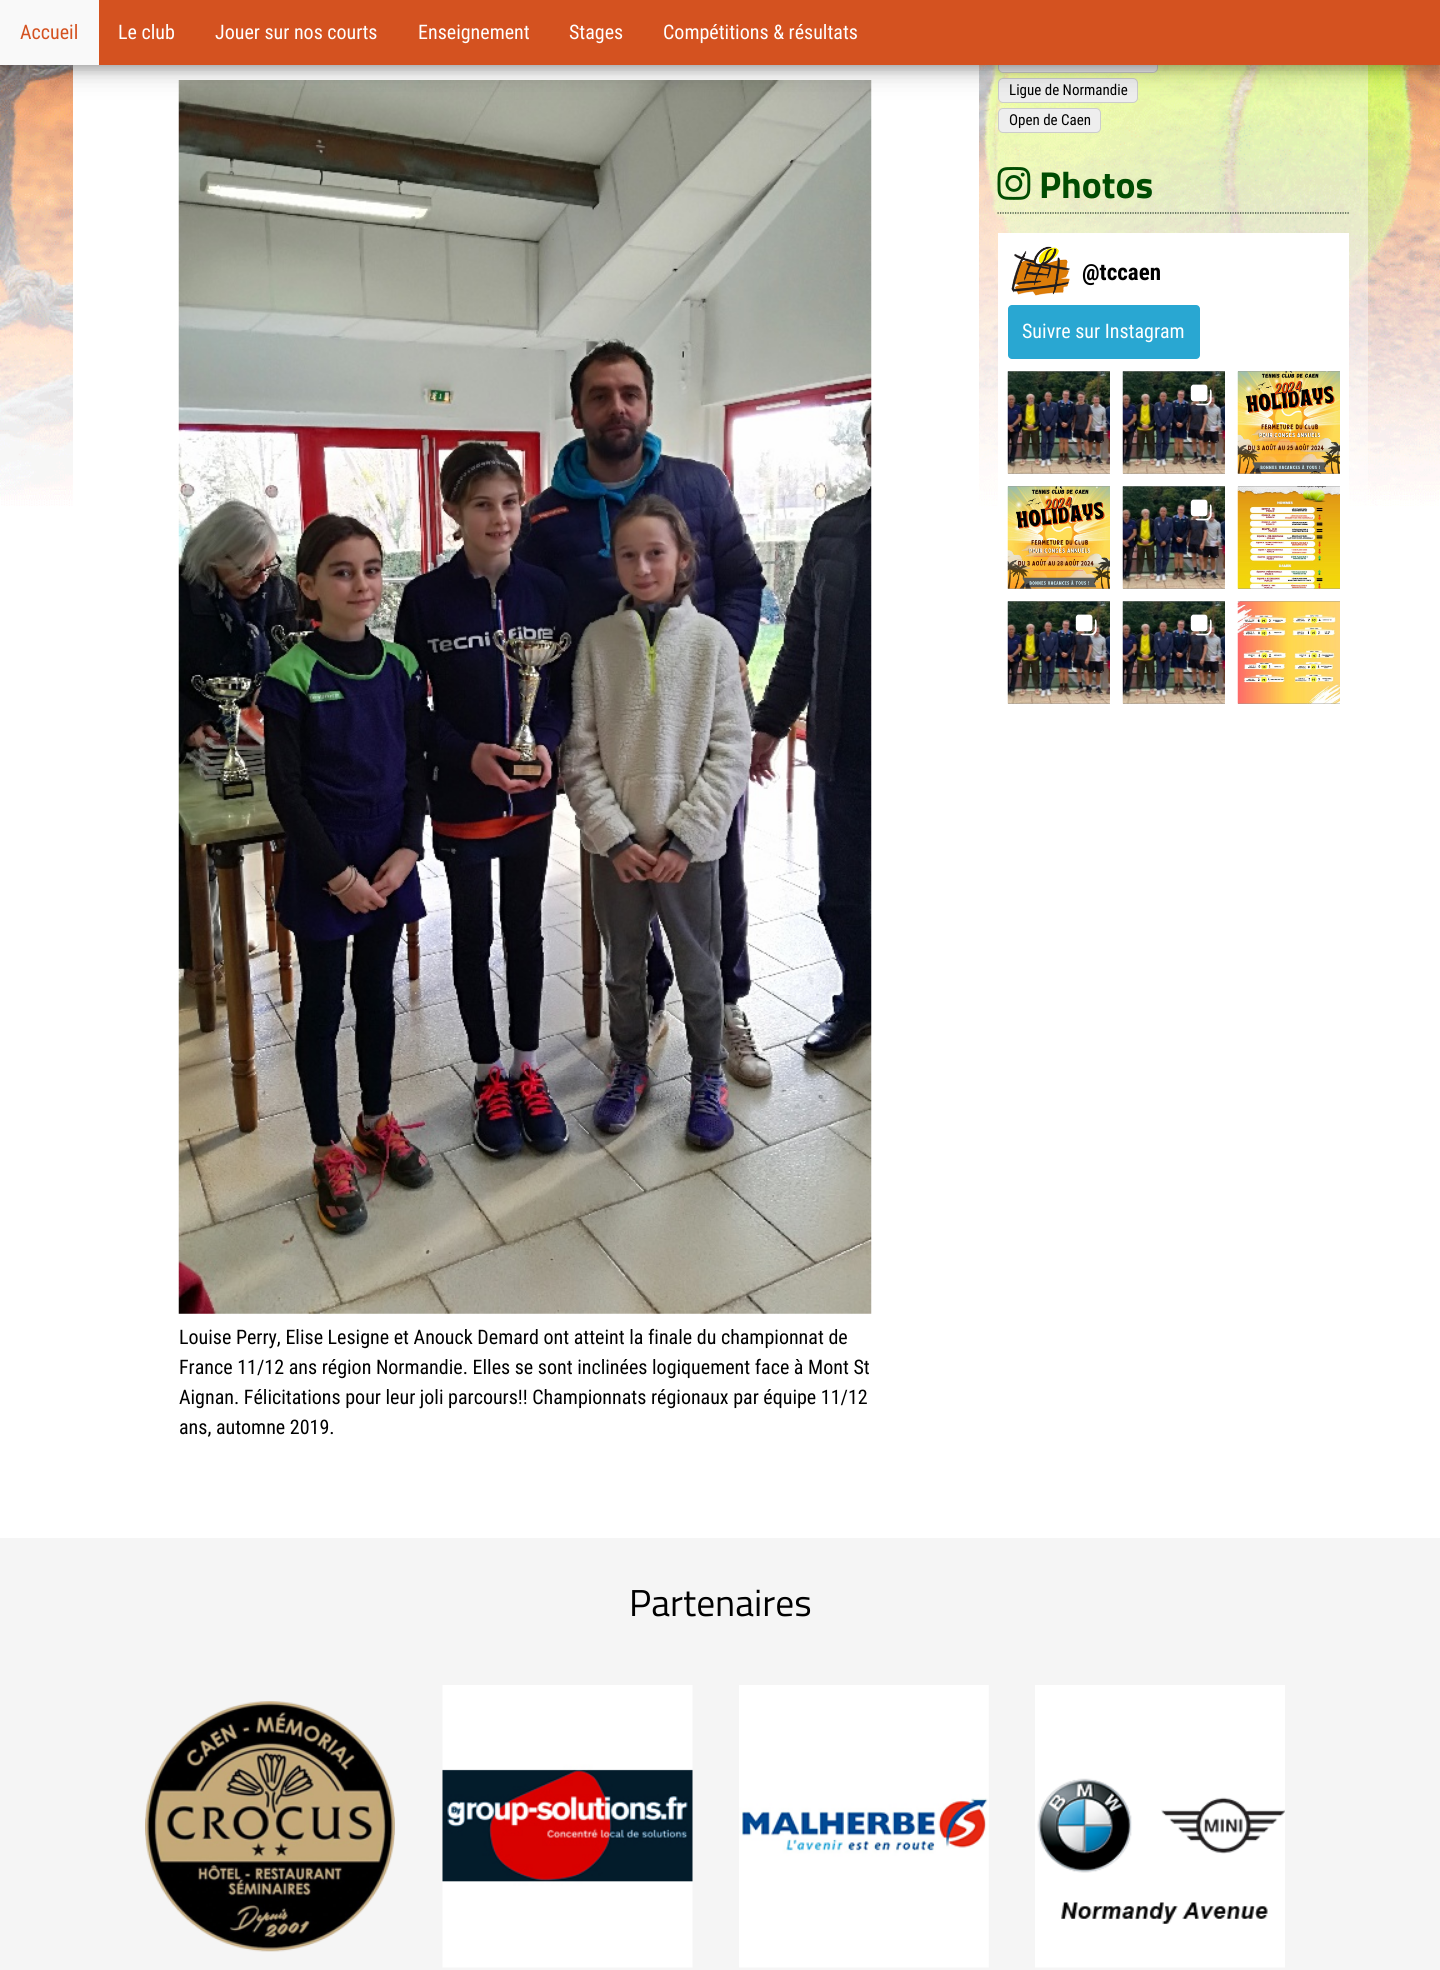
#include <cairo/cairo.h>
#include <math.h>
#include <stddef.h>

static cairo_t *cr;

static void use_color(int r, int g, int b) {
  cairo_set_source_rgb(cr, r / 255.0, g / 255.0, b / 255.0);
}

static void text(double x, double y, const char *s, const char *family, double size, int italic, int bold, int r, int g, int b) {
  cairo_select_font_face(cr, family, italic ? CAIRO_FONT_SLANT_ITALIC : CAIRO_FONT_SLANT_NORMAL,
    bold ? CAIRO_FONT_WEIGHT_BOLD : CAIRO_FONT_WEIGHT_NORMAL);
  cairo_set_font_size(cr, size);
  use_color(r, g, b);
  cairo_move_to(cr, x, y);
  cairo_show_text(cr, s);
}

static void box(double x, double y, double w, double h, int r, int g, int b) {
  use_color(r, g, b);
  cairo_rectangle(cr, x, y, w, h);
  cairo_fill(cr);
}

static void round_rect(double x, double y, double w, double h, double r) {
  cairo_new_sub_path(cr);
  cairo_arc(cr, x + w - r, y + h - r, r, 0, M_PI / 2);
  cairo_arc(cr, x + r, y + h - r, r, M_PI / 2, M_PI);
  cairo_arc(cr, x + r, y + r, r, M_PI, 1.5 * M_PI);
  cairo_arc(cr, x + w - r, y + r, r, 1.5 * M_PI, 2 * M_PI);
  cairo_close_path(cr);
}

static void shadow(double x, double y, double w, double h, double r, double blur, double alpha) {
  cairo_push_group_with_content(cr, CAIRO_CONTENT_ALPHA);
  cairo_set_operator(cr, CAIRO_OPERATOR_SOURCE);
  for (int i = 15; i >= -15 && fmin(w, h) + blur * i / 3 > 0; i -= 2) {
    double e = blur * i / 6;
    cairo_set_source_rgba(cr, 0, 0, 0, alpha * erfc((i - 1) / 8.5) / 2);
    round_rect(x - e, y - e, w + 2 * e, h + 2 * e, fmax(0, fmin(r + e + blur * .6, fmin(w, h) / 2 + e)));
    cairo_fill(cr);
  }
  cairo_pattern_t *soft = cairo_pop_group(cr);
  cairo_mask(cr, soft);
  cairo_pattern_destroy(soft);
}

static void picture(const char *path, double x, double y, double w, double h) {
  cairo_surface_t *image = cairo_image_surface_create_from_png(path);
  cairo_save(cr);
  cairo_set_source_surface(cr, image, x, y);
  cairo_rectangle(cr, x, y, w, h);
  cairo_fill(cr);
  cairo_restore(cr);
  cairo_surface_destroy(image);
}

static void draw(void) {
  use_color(255, 255, 255);
  cairo_paint(cr);
  picture("img_01.png", 0, 65, 1440, 441);
  cairo_set_source_rgba(cr, 1, 1, 1, 0.4);
  cairo_rectangle(cr, 979, 65, 389, 441);
  cairo_fill(cr);
  use_color(238, 238, 238);
  round_rect(998.5, 48.5, 159, 24, 4.5);
  cairo_fill_preserve(cr);
  use_color(204, 204, 204);
  cairo_set_line_width(cr, 1);
  cairo_stroke(cr);
  use_color(238, 238, 238);
  round_rect(998.5, 78.5, 139, 24, 4.5);
  cairo_fill_preserve(cr);
  use_color(204, 204, 204);
  cairo_stroke(cr);
  use_color(238, 238, 238);
  round_rect(998.5, 108.5, 102, 24, 4.5);
  cairo_fill_preserve(cr);
  use_color(204, 204, 204);
  cairo_stroke(cr);
  box(73, 65, 906, 441, 255, 255, 255);
  picture("img_10.png", 178, 80, 694, 1234);
  use_color(0, 0, 0);
  shadow(0, 8, 1440, 65, 0, 12.5, 0.19);
  shadow(0, 5, 1440, 65, 0, 5, 0.2);
  box(99, 0, 1341, 65, 212, 82, 32);
  box(0, 0, 99, 65, 249, 249, 249);
  cairo_new_path(cr);
  cairo_move_to(cr, 997.5, 213);
  cairo_line_to(cr, 1349, 213);
  use_color(33, 53, 41);
  cairo_set_line_width(cr, 1.2);
  cairo_set_dash(cr, (double[]){1.25, 1.25}, 2, 0);
  cairo_stroke(cr);
  picture("img_02.png", 997, 167, 34, 33);
  box(998, 233, 351, 273, 255, 255, 255);
  picture("img_03.png", 1011, 246, 59, 50);
  use_color(41, 167, 210);
  round_rect(1008, 305, 192, 54, 4);
  cairo_fill(cr);
  box(1008, 371, 102, 103, 153, 153, 153);
  picture("img_04.png", 1007, 371, 103, 103);
  box(1123, 371, 102, 103, 153, 153, 153);
  picture("img_04.png", 1122, 371, 103, 103);
  picture("img_05.png", 1190, 384, 22, 22);
  box(1238, 371, 102, 103, 153, 153, 153);
  picture("img_06.png", 1237, 371, 103, 103);
  box(1008, 486, 102, 103, 153, 153, 153);
  picture("img_07.png", 1007, 486, 103, 103);
  box(1123, 486, 102, 103, 153, 153, 153);
  picture("img_04.png", 1122, 486, 103, 103);
  picture("img_05.png", 1190, 499, 22, 22);
  box(1238, 486, 102, 103, 153, 153, 153);
  picture("img_08.png", 1237, 486, 103, 103);
  box(1008, 601, 102, 103, 153, 153, 153);
  picture("img_04.png", 1007, 601, 103, 103);
  picture("img_05.png", 1075, 614, 22, 22);
  box(1123, 601, 102, 103, 153, 153, 153);
  picture("img_04.png", 1122, 601, 103, 103);
  picture("img_05.png", 1190, 614, 22, 22);
  box(1238, 601, 102, 103, 153, 153, 153);
  picture("img_09.png", 1237, 601, 103, 103);
  box(0, 1538, 1440, 432, 245, 245, 245);
  picture("img_11.png", 145, 1701, 250, 251);
  picture("img_12.png", 442, 1685, 251, 283);
  picture("img_13.png", 739, 1685, 250, 283);
  picture("img_14.png", 1035, 1685, 250, 283);
  text(20, 39, "Accueil", "Roboto Condensed", 20, 0, 0, 212, 82, 32);
  text(118, 39, "Le club", "Roboto Condensed", 20, 0, 0, 255, 255, 255);
  text(215, 39, "Jouer sur nos courts", "Roboto Condensed", 20, 0, 0, 255, 255, 255);
  text(418, 39, "Enseignement", "Roboto Condensed", 20, 0, 0, 255, 255, 255);
  text(569, 39, "Stages", "Roboto Condensed", 20, 0, 0, 255, 255, 255);
  text(663, 39, "Compétitions & résultats", "Roboto Condensed", 20, 0, 0, 255, 255, 255);
  text(1009, 95, "Ligue de Normandie", "Roboto Condensed", 15, 0, 0, 0, 0, 0);
  text(1009, 125, "Open de Caen", "Roboto Condensed", 15, 0, 0, 0, 0, 0);
  text(1039, 198, "Photos", "Titillium Web", 37.5, 0, 1, 0, 76, 2);
  text(1082, 280, "@tccaen", "Roboto Condensed", 23, 0, 1, 0, 0, 0);
  text(1022, 338, "Suivre sur Instagram", "Roboto Condensed", 20, 0, 0, 255, 255, 255);
  text(179, 1344, "Louise Perry, Elise Lesigne et Anouck Demard ont atteint la finale du championnat de", "Roboto Condensed", 20, 0, 0, 0, 0, 0);
  text(179, 1374, "France 11/12 ans région Normandie. Elles se sont inclinées logiquement face à Mont St", "Roboto Condensed", 20, 0, 0, 0, 0, 0);
  text(179, 1404, "Aignan. Félicitations pour leur joli parcours!! Championnats régionaux par équipe 11/12", "Roboto Condensed", 20, 0, 0, 0, 0, 0);
  text(179, 1434, "ans, automne 2019.", "Roboto Condensed", 20, 0, 0, 0, 0, 0);
  text(629, 1616, "Partenaires", "Titillium Web", 37.5, 0, 0, 0, 0, 0);
}

int main(void) {
  cairo_surface_t *surface = cairo_image_surface_create(CAIRO_FORMAT_RGB24, 1440, 1970);
  cr = cairo_create(surface);
  cairo_font_options_t *options = cairo_font_options_create();
  cairo_font_options_set_hint_metrics(options, CAIRO_HINT_METRICS_OFF);
  cairo_font_options_set_hint_style(options, CAIRO_HINT_STYLE_NONE);
  cairo_set_font_options(cr, options);
  cairo_set_miter_limit(cr, 4);
  draw();
  cairo_surface_write_to_png(surface, "out.png");
  cairo_font_options_destroy(options);
  cairo_destroy(cr);
  cairo_surface_destroy(surface);
  return 0;
}
